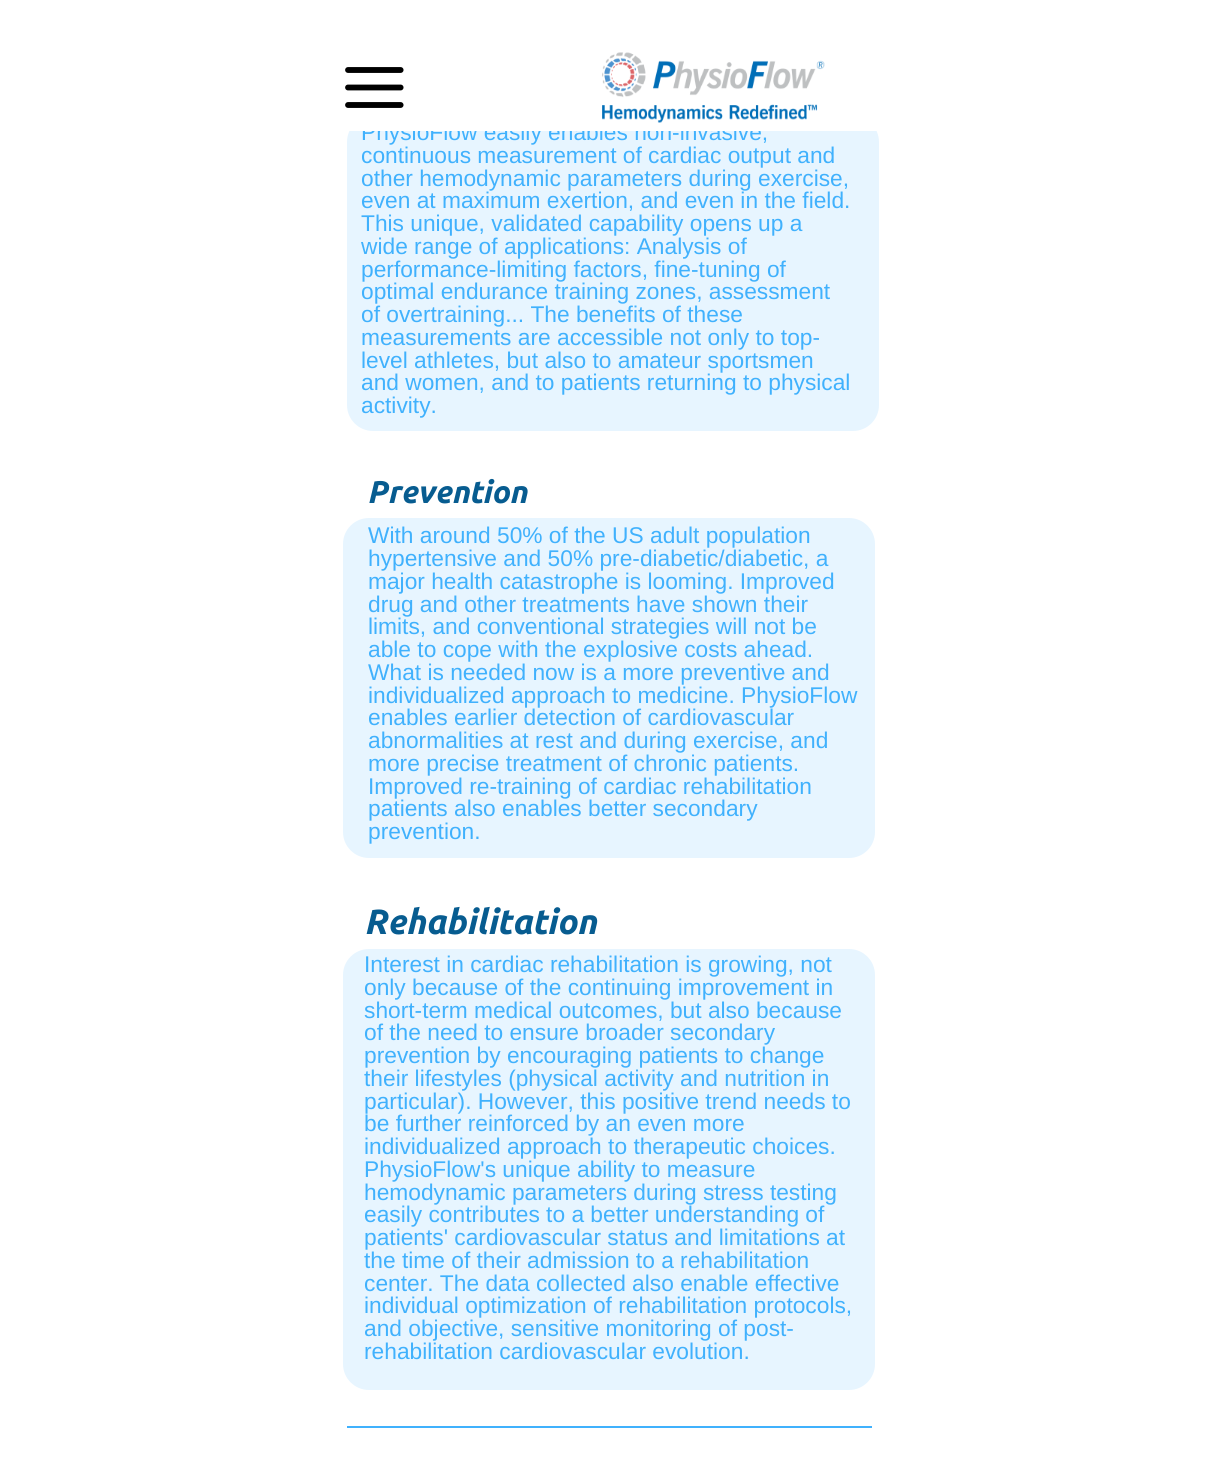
#include <cairo/cairo.h>
#include <math.h>
#include <stddef.h>

static cairo_t *cr;

static void use_color(int r, int g, int b) {
  cairo_set_source_rgb(cr, r / 255.0, g / 255.0, b / 255.0);
}

static void text(double x, double y, const char *s, const char *family, double size, int italic, int bold, int r, int g, int b) {
  cairo_select_font_face(cr, family, italic ? CAIRO_FONT_SLANT_ITALIC : CAIRO_FONT_SLANT_NORMAL,
    bold ? CAIRO_FONT_WEIGHT_BOLD : CAIRO_FONT_WEIGHT_NORMAL);
  cairo_set_font_size(cr, size);
  use_color(r, g, b);
  cairo_move_to(cr, x, y);
  cairo_show_text(cr, s);
}

static void box(double x, double y, double w, double h, int r, int g, int b) {
  use_color(r, g, b);
  cairo_rectangle(cr, x, y, w, h);
  cairo_fill(cr);
}

static void round_rect(double x, double y, double w, double h, double r) {
  cairo_new_sub_path(cr);
  cairo_arc(cr, x + w - r, y + h - r, r, 0, M_PI / 2);
  cairo_arc(cr, x + r, y + h - r, r, M_PI / 2, M_PI);
  cairo_arc(cr, x + r, y + r, r, M_PI, 1.5 * M_PI);
  cairo_arc(cr, x + w - r, y + r, r, 1.5 * M_PI, 2 * M_PI);
  cairo_close_path(cr);
}

static void picture(const char *path, double x, double y, double w, double h) {
  cairo_surface_t *image = cairo_image_surface_create_from_png(path);
  cairo_save(cr);
  cairo_set_source_surface(cr, image, x, y);
  cairo_rectangle(cr, x, y, w, h);
  cairo_fill(cr);
  cairo_restore(cr);
  cairo_surface_destroy(image);
}

static void draw(void) {
  use_color(255, 255, 255);
  cairo_paint(cr);
  picture("img_01.png", 345, 67, 59, 41);
  use_color(231, 245, 255);
  round_rect(347, 116, 532, 315, 26);
  cairo_fill(cr);
  round_rect(343, 518, 532, 340, 26);
  cairo_fill(cr);
  round_rect(343, 949, 532, 441, 26);
  cairo_fill(cr);
  box(347, 1426, 525, 2, 64, 177, 253);
  text(361, 140, "PhysioFlow easily enables non-invasive,", "Liberation Sans", 22.75, 0, 0, 64, 177, 253);
  box(349, 116, 528, 15, 255, 255, 255);
  picture("img_02.png", 602, 52, 223, 71);
  text(361, 163, "continuous measurement of cardiac output and", "Liberation Sans", 22.75, 0, 0, 64, 177, 253);
  text(361, 186, "other hemodynamic parameters during exercise,", "Liberation Sans", 22.75, 0, 0, 64, 177, 253);
  text(361, 208, "even at maximum exertion, and even in the field.", "Liberation Sans", 22.75, 0, 0, 64, 177, 253);
  text(361, 231, "This unique, validated capability opens up a", "Liberation Sans", 22.75, 0, 0, 64, 177, 253);
  text(361, 254, "wide range of applications: Analysis of", "Liberation Sans", 22.75, 0, 0, 64, 177, 253);
  text(361, 277, "performance-limiting factors, fine-tuning of", "Liberation Sans", 22.75, 0, 0, 64, 177, 253);
  text(361, 299, "optimal endurance training zones, assessment", "Liberation Sans", 22.75, 0, 0, 64, 177, 253);
  text(361, 322, "of overtraining... The benefits of these", "Liberation Sans", 22.75, 0, 0, 64, 177, 253);
  text(361, 345, "measurements are accessible not only to top-", "Liberation Sans", 22.75, 0, 0, 64, 177, 253);
  text(361, 368, "level athletes, but also to amateur sportsmen", "Liberation Sans", 22.75, 0, 0, 64, 177, 253);
  text(361, 390, "and women, and to patients returning to physical", "Liberation Sans", 22.75, 0, 0, 64, 177, 253);
  text(361, 413, "activity.", "Liberation Sans", 22.75, 0, 0, 64, 177, 253);
  text(367, 503, "Prevention", "Ubuntu", 31.5, 1, 1, 7, 92, 144);
  text(368, 543, "With around 50% of the US adult population", "Liberation Sans", 22.75, 0, 0, 64, 177, 253);
  text(368, 566, "hypertensive and 50% pre-diabetic/diabetic, a", "Liberation Sans", 22.75, 0, 0, 64, 177, 253);
  text(368, 589, "major health catastrophe is looming. Improved", "Liberation Sans", 22.75, 0, 0, 64, 177, 253);
  text(368, 612, "drug and other treatments have shown their", "Liberation Sans", 22.75, 0, 0, 64, 177, 253);
  text(368, 634, "limits, and conventional strategies will not be", "Liberation Sans", 22.75, 0, 0, 64, 177, 253);
  text(368, 657, "able to cope with the explosive costs ahead.", "Liberation Sans", 22.75, 0, 0, 64, 177, 253);
  text(368, 680, "What is needed now is a more preventive and", "Liberation Sans", 22.75, 0, 0, 64, 177, 253);
  text(368, 703, "individualized approach to medicine. PhysioFlow", "Liberation Sans", 22.75, 0, 0, 64, 177, 253);
  text(368, 725, "enables earlier detection of cardiovascular", "Liberation Sans", 22.75, 0, 0, 64, 177, 253);
  text(368, 748, "abnormalities at rest and during exercise, and", "Liberation Sans", 22.75, 0, 0, 64, 177, 253);
  text(368, 771, "more precise treatment of chronic patients.", "Liberation Sans", 22.75, 0, 0, 64, 177, 253);
  text(368, 794, "Improved re-training of cardiac rehabilitation", "Liberation Sans", 22.75, 0, 0, 64, 177, 253);
  text(368, 816, "patients also enables better secondary", "Liberation Sans", 22.75, 0, 0, 64, 177, 253);
  text(368, 839, "prevention.", "Liberation Sans", 22.75, 0, 0, 64, 177, 253);
  text(364, 934, "Rehabilitation", "Ubuntu", 35, 1, 1, 7, 92, 144);
  text(364, 972, "Interest in cardiac rehabilitation is growing, not", "Liberation Sans", 22.75, 0, 0, 64, 177, 253);
  text(364, 995, "only because of the continuing improvement in", "Liberation Sans", 22.75, 0, 0, 64, 177, 253);
  text(364, 1018, "short-term medical outcomes, but also because", "Liberation Sans", 22.75, 0, 0, 64, 177, 253);
  text(364, 1040, "of the need to ensure broader secondary", "Liberation Sans", 22.75, 0, 0, 64, 177, 253);
  text(364, 1063, "prevention by encouraging patients to change", "Liberation Sans", 22.75, 0, 0, 64, 177, 253);
  text(364, 1086, "their lifestyles (physical activity and nutrition in", "Liberation Sans", 22.75, 0, 0, 64, 177, 253);
  text(364, 1109, "particular). However, this positive trend needs to", "Liberation Sans", 22.75, 0, 0, 64, 177, 253);
  text(364, 1131, "be further reinforced by an even more", "Liberation Sans", 22.75, 0, 0, 64, 177, 253);
  text(364, 1154, "individualized approach to therapeutic choices.", "Liberation Sans", 22.75, 0, 0, 64, 177, 253);
  text(364, 1177, "PhysioFlow's unique ability to measure", "Liberation Sans", 22.75, 0, 0, 64, 177, 253);
  text(364, 1200, "hemodynamic parameters during stress testing", "Liberation Sans", 22.75, 0, 0, 64, 177, 253);
  text(364, 1222, "easily contributes to a better understanding of", "Liberation Sans", 22.75, 0, 0, 64, 177, 253);
  text(364, 1245, "patients' cardiovascular status and limitations at", "Liberation Sans", 22.75, 0, 0, 64, 177, 253);
  text(364, 1268, "the time of their admission to a rehabilitation", "Liberation Sans", 22.75, 0, 0, 64, 177, 253);
  text(364, 1291, "center. The data collected also enable effective", "Liberation Sans", 22.75, 0, 0, 64, 177, 253);
  text(364, 1313, "individual optimization of rehabilitation protocols,", "Liberation Sans", 22.75, 0, 0, 64, 177, 253);
  text(364, 1336, "and objective, sensitive monitoring of post-", "Liberation Sans", 22.75, 0, 0, 64, 177, 253);
  text(364, 1359, "rehabilitation cardiovascular evolution.", "Liberation Sans", 22.75, 0, 0, 64, 177, 253);
}

int main(void) {
  cairo_surface_t *surface = cairo_image_surface_create(CAIRO_FORMAT_RGB24, 1218, 1468);
  cr = cairo_create(surface);
  cairo_font_options_t *options = cairo_font_options_create();
  cairo_font_options_set_hint_metrics(options, CAIRO_HINT_METRICS_OFF);
  cairo_font_options_set_hint_style(options, CAIRO_HINT_STYLE_NONE);
  cairo_set_font_options(cr, options);
  cairo_set_miter_limit(cr, 4);
  draw();
  cairo_surface_write_to_png(surface, "out.png");
  cairo_font_options_destroy(options);
  cairo_destroy(cr);
  cairo_surface_destroy(surface);
  return 0;
}
